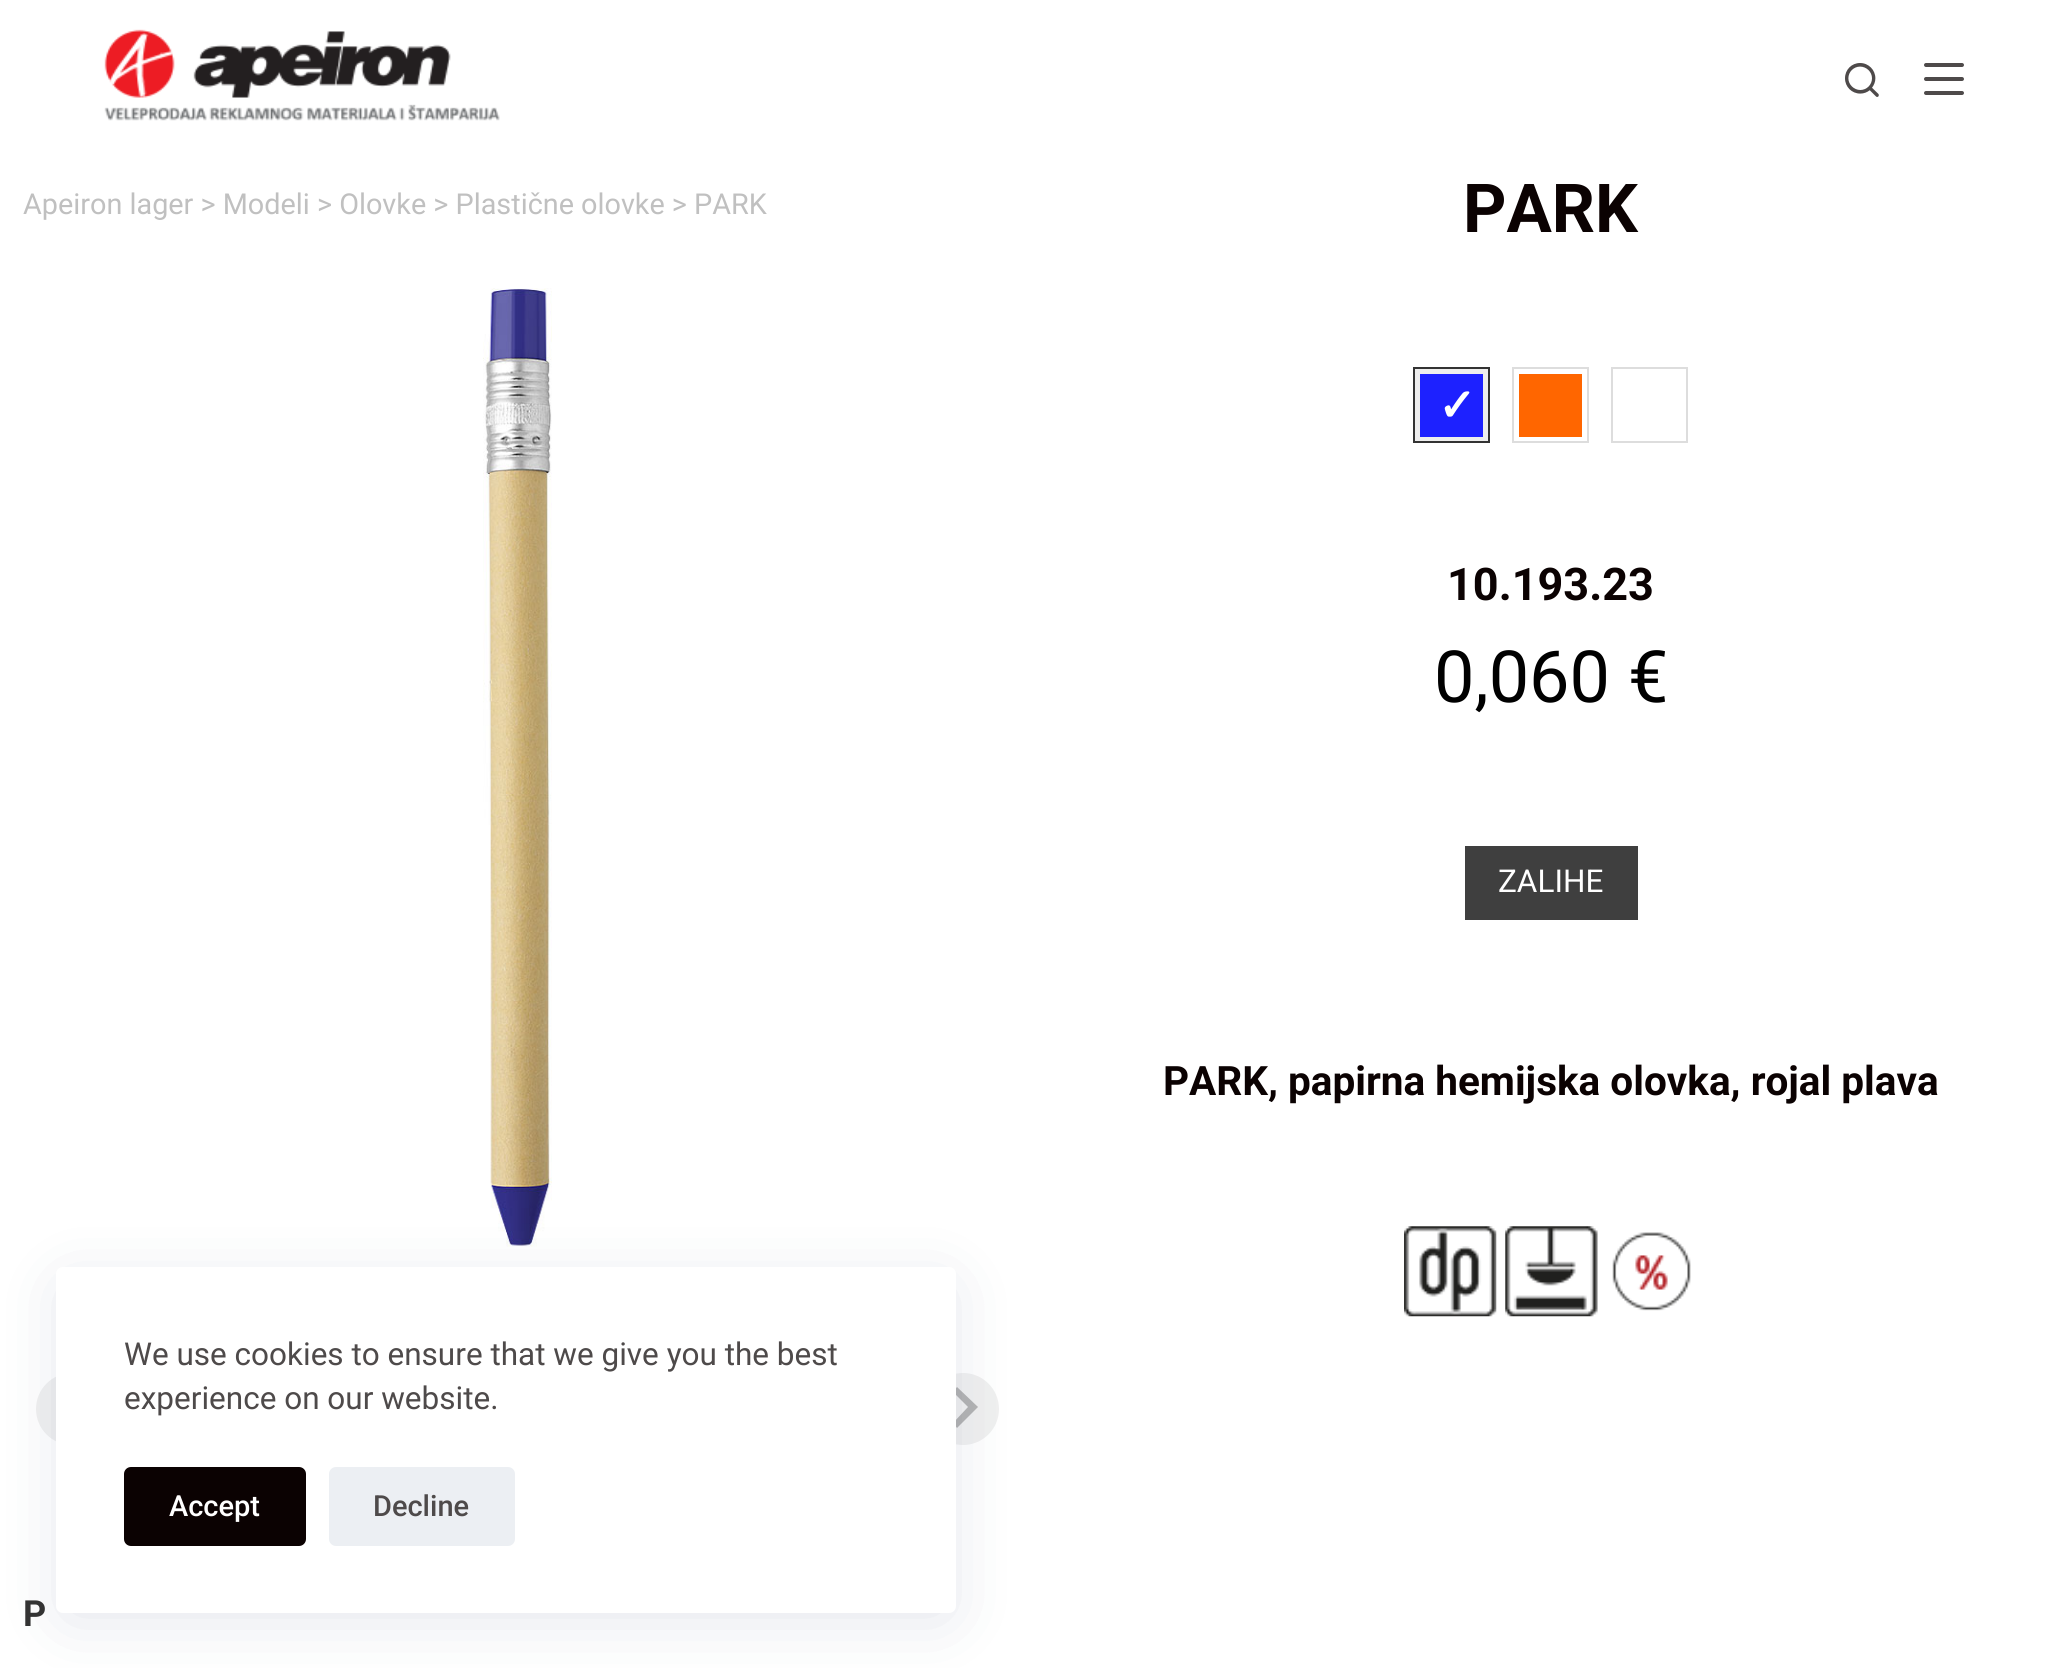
#include <cairo/cairo.h>
#include <math.h>
#include <stddef.h>

static cairo_t *cr;

static void use_color(int r, int g, int b) {
  cairo_set_source_rgb(cr, r / 255.0, g / 255.0, b / 255.0);
}

static void text(double x, double y, const char *s, const char *family, double size, int italic, int bold, int r, int g, int b) {
  cairo_select_font_face(cr, family, italic ? CAIRO_FONT_SLANT_ITALIC : CAIRO_FONT_SLANT_NORMAL,
    bold ? CAIRO_FONT_WEIGHT_BOLD : CAIRO_FONT_WEIGHT_NORMAL);
  cairo_set_font_size(cr, size);
  use_color(r, g, b);
  cairo_move_to(cr, x, y);
  cairo_show_text(cr, s);
}

static void box(double x, double y, double w, double h, int r, int g, int b) {
  use_color(r, g, b);
  cairo_rectangle(cr, x, y, w, h);
  cairo_fill(cr);
}

static void round_rect(double x, double y, double w, double h, double r) {
  cairo_new_sub_path(cr);
  cairo_arc(cr, x + w - r, y + h - r, r, 0, M_PI / 2);
  cairo_arc(cr, x + r, y + h - r, r, M_PI / 2, M_PI);
  cairo_arc(cr, x + r, y + r, r, M_PI, 1.5 * M_PI);
  cairo_arc(cr, x + w - r, y + r, r, 1.5 * M_PI, 2 * M_PI);
  cairo_close_path(cr);
}

static void shadow(double x, double y, double w, double h, double r, double blur, double alpha) {
  cairo_push_group_with_content(cr, CAIRO_CONTENT_ALPHA);
  cairo_set_operator(cr, CAIRO_OPERATOR_SOURCE);
  for (int i = 15; i >= -15 && fmin(w, h) + blur * i / 3 > 0; i -= 2) {
    double e = blur * i / 6;
    cairo_set_source_rgba(cr, 0, 0, 0, alpha * erfc((i - 1) / 8.5) / 2);
    round_rect(x - e, y - e, w + 2 * e, h + 2 * e, fmax(0, fmin(r + e + blur * .6, fmin(w, h) / 2 + e)));
    cairo_fill(cr);
  }
  cairo_pattern_t *soft = cairo_pop_group(cr);
  cairo_mask(cr, soft);
  cairo_pattern_destroy(soft);
}

static void picture(const char *path, double x, double y, double w, double h) {
  cairo_surface_t *image = cairo_image_surface_create_from_png(path);
  cairo_save(cr);
  cairo_set_source_surface(cr, image, x, y);
  cairo_rectangle(cr, x, y, w, h);
  cairo_fill(cr);
  cairo_restore(cr);
  cairo_surface_destroy(image);
}

static void draw(void) {
  use_color(255, 255, 255);
  cairo_paint(cr);
  picture("img_01.png", 104, 29, 396, 92);
  picture("img_02.png", 1845, 63, 34, 34);
  use_color(78, 74, 74);
  round_rect(1924, 63, 40, 4, 2);
  cairo_fill(cr);
  round_rect(1924, 77, 40, 4, 2);
  cairo_fill(cr);
  round_rect(1924, 91, 40, 4, 2);
  cairo_fill(cr);
  picture("img_03.png", 483, 288, 69, 959);
  use_color(240, 240, 240);
  cairo_arc(cr, 72, 1409, 36, 0, 2 * M_PI);
  cairo_fill(cr);
  cairo_arc(cr, 963, 1409, 36, 0, 2 * M_PI);
  cairo_fill(cr);
  use_color(179, 179, 179);
  cairo_new_path(cr);
  cairo_move_to(cr, 957, 1387);
  cairo_line_to(cr, 953, 1392);
  cairo_line_to(cr, 968, 1407);
  cairo_line_to(cr, 953, 1423);
  cairo_line_to(cr, 957, 1428);
  cairo_line_to(cr, 978, 1407);
  cairo_close_path(cr);
  cairo_fill(cr);
  use_color(238, 238, 238);
  cairo_rectangle(cr, 1414, 368, 75, 74);
  cairo_fill_preserve(cr);
  use_color(51, 51, 51);
  cairo_stroke(cr);
  box(1420, 374, 63, 63, 29, 33, 255);
  cairo_rectangle(cr, 1513, 368, 75, 74);
  use_color(221, 221, 221);
  cairo_stroke(cr);
  box(1519, 374, 63, 63, 255, 102, 0);
  cairo_rectangle(cr, 1612, 368, 75, 74);
  use_color(221, 221, 221);
  cairo_stroke(cr);
  box(1465, 846, 173, 74, 63, 63, 63);
  picture("img_04.png", 1404, 1226, 93, 91);
  picture("img_05.png", 1505, 1226, 93, 91);
  picture("img_06.png", 1612, 1232, 79, 79);
  use_color(34, 56, 101);
  shadow(68, 1289, 877, 324, 0, 34, 0.15);
  use_color(255, 255, 255);
  round_rect(56, 1267, 900, 346, 7);
  cairo_fill(cr);
  use_color(11, 2, 2);
  round_rect(124, 1467, 182, 79, 7);
  cairo_fill(cr);
  use_color(236, 239, 243);
  round_rect(329, 1467, 186, 79, 7);
  cairo_fill(cr);
  text(23, 214, "Apeiron lager > Modeli > Olovke > Plastične olovke > PARK", "Roboto", 28.8, 0, 0, 192, 192, 192);
  text(1463, 232, "PARK", "Roboto", 67.5, 0, 1, 11, 2, 2);
  text(1438, 421, "✓", "DejaVu Sans", 45, 0, 1, 255, 255, 255);
  text(1447, 600, "10.193.23", "Roboto", 45, 0, 1, 11, 2, 2);
  text(1434, 702, "0,060 €", "Roboto", 72, 0, 0, 0, 0, 0);
  text(1498, 892, "ZALIHE", "Roboto", 31.5, 0, 0, 255, 255, 255);
  text(1163, 1095, "PARK, papirna hemijska olovka, rojal plava", "Roboto", 40.5, 0, 1, 11, 2, 2);
  text(23, 1626, "P", "Roboto", 36, 0, 1, 51, 51, 51);
  text(124, 1365, "We use cookies to ensure that we give you the best", "Roboto", 31.5, 0, 0, 78, 74, 74);
  text(124, 1409, "experience on our website.", "Roboto", 31.5, 0, 0, 78, 74, 74);
  text(169, 1516, "Accept", "Roboto Medium", 29, 0, 0, 255, 255, 255);
  text(373, 1516, "Decline", "Roboto Medium", 29, 0, 0, 78, 74, 74);
}

int main(void) {
  cairo_surface_t *surface = cairo_image_surface_create(CAIRO_FORMAT_RGB24, 2067, 1668);
  cr = cairo_create(surface);
  cairo_font_options_t *options = cairo_font_options_create();
  cairo_font_options_set_hint_metrics(options, CAIRO_HINT_METRICS_OFF);
  cairo_font_options_set_hint_style(options, CAIRO_HINT_STYLE_NONE);
  cairo_set_font_options(cr, options);
  cairo_set_miter_limit(cr, 4);
  draw();
  cairo_surface_write_to_png(surface, "out.png");
  cairo_font_options_destroy(options);
  cairo_destroy(cr);
  cairo_surface_destroy(surface);
  return 0;
}
